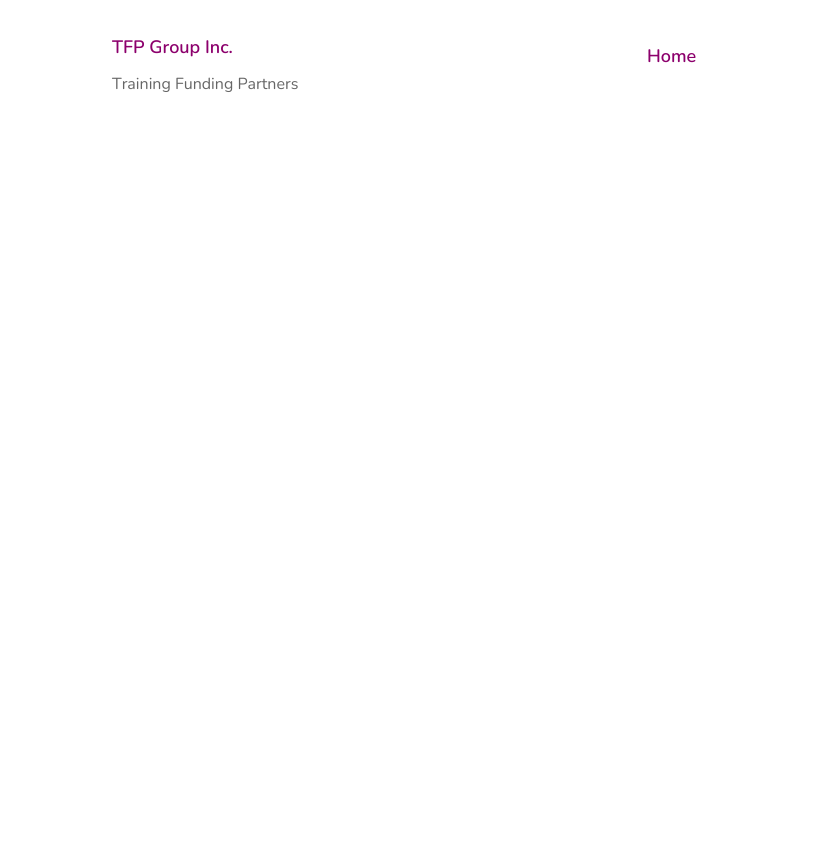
#include <cairo/cairo.h>
#include <math.h>
#include <stddef.h>

static cairo_t *cr;

static void use_color(int r, int g, int b) {
  cairo_set_source_rgb(cr, r / 255.0, g / 255.0, b / 255.0);
}

static void text(double x, double y, const char *s, const char *family, double size, int italic, int bold, int r, int g, int b) {
  cairo_select_font_face(cr, family, italic ? CAIRO_FONT_SLANT_ITALIC : CAIRO_FONT_SLANT_NORMAL,
    bold ? CAIRO_FONT_WEIGHT_BOLD : CAIRO_FONT_WEIGHT_NORMAL);
  cairo_set_font_size(cr, size);
  use_color(r, g, b);
  cairo_move_to(cr, x, y);
  cairo_show_text(cr, s);
}

static void draw(void) {
  use_color(255, 255, 255);
  cairo_paint(cr);
  text(112, 53, "TFP Group Inc.", "Nunito SemiBold", 18, 0, 0, 140, 0, 108);
  text(112, 89, "Training Funding Partners", "Nunito", 16, 0, 0, 102, 102, 102);
  text(647, 62, "Home", "Nunito SemiBold", 18, 0, 0, 140, 0, 108);
}

int main(void) {
  cairo_surface_t *surface = cairo_image_surface_create(CAIRO_FORMAT_RGB24, 823, 854);
  cr = cairo_create(surface);
  cairo_font_options_t *options = cairo_font_options_create();
  cairo_font_options_set_hint_metrics(options, CAIRO_HINT_METRICS_OFF);
  cairo_font_options_set_hint_style(options, CAIRO_HINT_STYLE_NONE);
  cairo_set_font_options(cr, options);
  cairo_set_miter_limit(cr, 4);
  draw();
  cairo_surface_write_to_png(surface, "out.png");
  cairo_font_options_destroy(options);
  cairo_destroy(cr);
  cairo_surface_destroy(surface);
  return 0;
}
